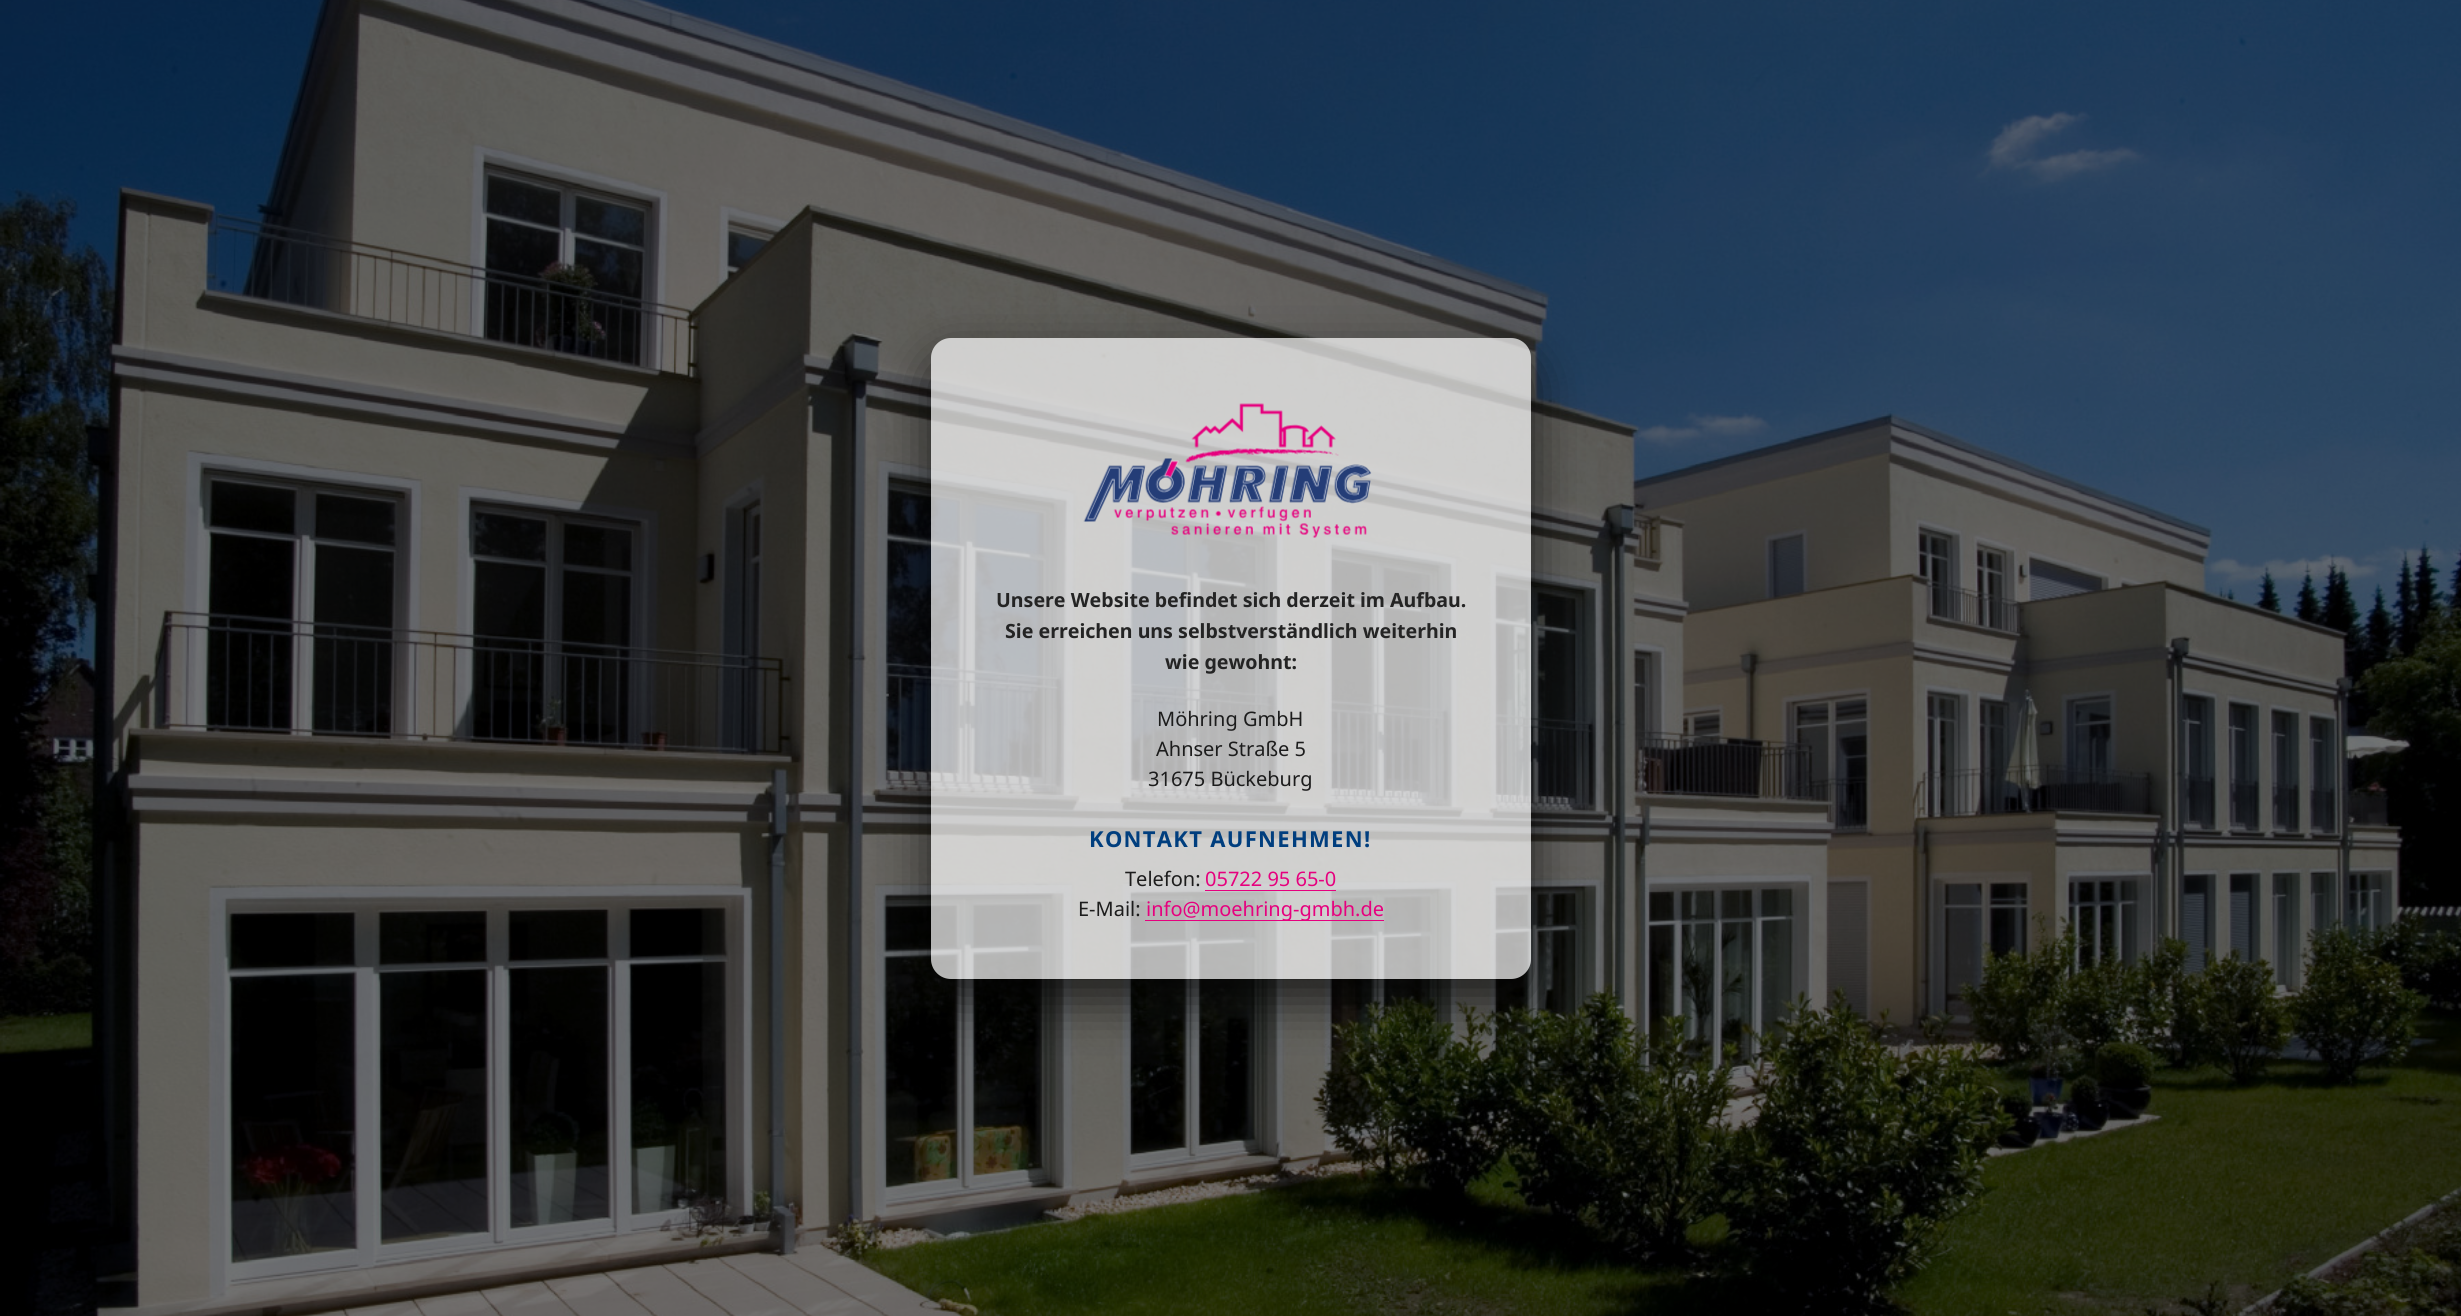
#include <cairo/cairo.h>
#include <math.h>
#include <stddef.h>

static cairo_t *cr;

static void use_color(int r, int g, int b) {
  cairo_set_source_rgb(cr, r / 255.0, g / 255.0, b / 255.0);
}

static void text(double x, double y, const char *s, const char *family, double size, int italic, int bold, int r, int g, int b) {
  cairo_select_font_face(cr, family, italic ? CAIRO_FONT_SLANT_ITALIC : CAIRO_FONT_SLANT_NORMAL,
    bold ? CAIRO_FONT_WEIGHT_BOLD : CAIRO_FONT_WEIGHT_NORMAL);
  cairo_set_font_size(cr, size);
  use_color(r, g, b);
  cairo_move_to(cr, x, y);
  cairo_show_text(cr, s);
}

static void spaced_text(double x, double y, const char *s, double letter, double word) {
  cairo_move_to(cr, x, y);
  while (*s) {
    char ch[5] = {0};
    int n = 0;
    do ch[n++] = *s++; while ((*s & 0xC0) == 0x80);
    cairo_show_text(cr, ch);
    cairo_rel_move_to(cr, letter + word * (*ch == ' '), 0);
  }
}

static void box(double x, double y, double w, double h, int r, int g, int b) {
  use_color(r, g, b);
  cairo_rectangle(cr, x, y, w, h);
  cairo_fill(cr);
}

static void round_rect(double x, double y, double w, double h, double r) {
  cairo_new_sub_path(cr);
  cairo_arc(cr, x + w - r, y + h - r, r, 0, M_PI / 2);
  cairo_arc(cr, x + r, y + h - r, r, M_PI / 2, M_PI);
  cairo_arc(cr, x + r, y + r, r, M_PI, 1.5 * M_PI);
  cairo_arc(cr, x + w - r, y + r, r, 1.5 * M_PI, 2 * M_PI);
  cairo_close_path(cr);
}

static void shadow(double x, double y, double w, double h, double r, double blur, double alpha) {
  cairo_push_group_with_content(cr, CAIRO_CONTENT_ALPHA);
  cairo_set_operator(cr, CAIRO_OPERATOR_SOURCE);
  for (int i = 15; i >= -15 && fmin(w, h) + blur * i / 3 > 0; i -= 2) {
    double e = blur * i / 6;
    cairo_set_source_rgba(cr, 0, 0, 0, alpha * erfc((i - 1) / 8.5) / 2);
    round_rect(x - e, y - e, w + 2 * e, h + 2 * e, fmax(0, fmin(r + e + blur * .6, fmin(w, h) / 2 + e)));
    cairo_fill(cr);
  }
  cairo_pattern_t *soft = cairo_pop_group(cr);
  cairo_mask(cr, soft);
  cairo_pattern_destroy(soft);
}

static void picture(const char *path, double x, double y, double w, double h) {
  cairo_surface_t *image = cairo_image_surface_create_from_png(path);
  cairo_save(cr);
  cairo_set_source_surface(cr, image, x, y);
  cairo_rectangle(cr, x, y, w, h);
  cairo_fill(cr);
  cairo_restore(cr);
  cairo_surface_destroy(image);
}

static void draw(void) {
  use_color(255, 255, 255);
  cairo_paint(cr);
  picture("img_01.png", 0, 0, 2461, 1316);
  cairo_save(cr);
  cairo_set_fill_rule(cr, CAIRO_FILL_RULE_EVEN_ODD);
  cairo_new_path(cr);
  cairo_move_to(cr, 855, 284);
  cairo_line_to(cr, 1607, 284);
  cairo_line_to(cr, 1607, 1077);
  cairo_line_to(cr, 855, 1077);
  cairo_close_path(cr);
  cairo_move_to(cr, 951, 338);
  cairo_line_to(cr, 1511, 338);
  cairo_curve_to(cr, 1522, 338, 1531, 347, 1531, 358);
  cairo_line_to(cr, 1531, 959);
  cairo_curve_to(cr, 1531, 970, 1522, 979, 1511, 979);
  cairo_line_to(cr, 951, 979);
  cairo_curve_to(cr, 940, 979, 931, 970, 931, 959);
  cairo_line_to(cr, 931, 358);
  cairo_curve_to(cr, 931, 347, 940, 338, 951, 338);
  cairo_close_path(cr);
  cairo_clip(cr);
  use_color(0, 0, 0);
  shadow(931, 360, 600, 641, 20, 25, 0.7);
  cairo_restore(cr);
  cairo_set_source_rgba(cr, 1, 1, 1, 0.7);
  round_rect(931, 338, 600, 641, 20);
  cairo_fill(cr);
  picture("img_02.png", 1083, 403, 289, 135);
  box(1205, 890, 131, 1, 230, 0, 126);
  box(1145, 920, 239, 1, 230, 0, 126);
  text(996, 607, "Unsere Website befindet sich derzeit im Aufbau.", "Noto Sans", 19.6, 0, 1, 36, 36, 36);
  text(1005, 638, "Sie erreichen uns selbstverständlich weiterhin", "Noto Sans", 19.6, 0, 1, 36, 36, 36);
  text(1165, 669, "wie gewohnt:", "Noto Sans", 19.6, 0, 1, 36, 36, 36);
  text(1157, 726, "Möhring GmbH", "Noto Sans", 20, 0, 0, 28, 28, 28);
  text(1156, 756, "Ahnser Straße 5", "Noto Sans", 20, 0, 0, 28, 28, 28);
  text(1148, 786, "31675 Bückeburg", "Noto Sans", 20, 0, 0, 28, 28, 28);
  cairo_select_font_face(cr, "Noto Sans", CAIRO_FONT_SLANT_NORMAL, CAIRO_FONT_WEIGHT_BOLD);
  cairo_set_font_size(cr, 22);
  use_color(0, 62, 126);
  spaced_text(1089, 847, "KONTAKT AUFNEHMEN!", 1.3, 0);
  text(1125, 886, "Telefon:", "Noto Sans", 20, 0, 0, 28, 28, 28);
  text(1205, 886, "05722 95 65-0", "Noto Sans", 20, 0, 0, 230, 0, 126);
  text(1078, 916, "E-Mail:", "Noto Sans", 20, 0, 0, 28, 28, 28);
  text(1146, 916, "info@moehring-gmbh.de", "Noto Sans", 20, 0, 0, 230, 0, 126);
}

int main(void) {
  cairo_surface_t *surface = cairo_image_surface_create(CAIRO_FORMAT_RGB24, 2461, 1316);
  cr = cairo_create(surface);
  cairo_font_options_t *options = cairo_font_options_create();
  cairo_font_options_set_hint_metrics(options, CAIRO_HINT_METRICS_OFF);
  cairo_font_options_set_hint_style(options, CAIRO_HINT_STYLE_NONE);
  cairo_set_font_options(cr, options);
  cairo_set_miter_limit(cr, 4);
  draw();
  cairo_surface_write_to_png(surface, "out.png");
  cairo_font_options_destroy(options);
  cairo_destroy(cr);
  cairo_surface_destroy(surface);
  return 0;
}
